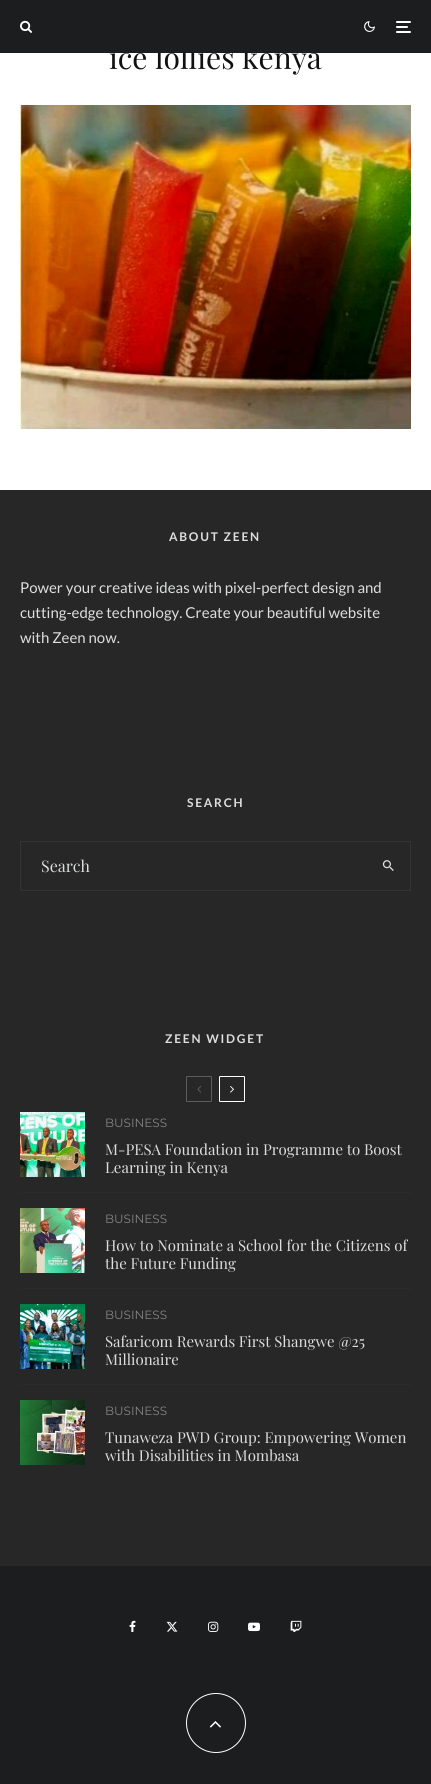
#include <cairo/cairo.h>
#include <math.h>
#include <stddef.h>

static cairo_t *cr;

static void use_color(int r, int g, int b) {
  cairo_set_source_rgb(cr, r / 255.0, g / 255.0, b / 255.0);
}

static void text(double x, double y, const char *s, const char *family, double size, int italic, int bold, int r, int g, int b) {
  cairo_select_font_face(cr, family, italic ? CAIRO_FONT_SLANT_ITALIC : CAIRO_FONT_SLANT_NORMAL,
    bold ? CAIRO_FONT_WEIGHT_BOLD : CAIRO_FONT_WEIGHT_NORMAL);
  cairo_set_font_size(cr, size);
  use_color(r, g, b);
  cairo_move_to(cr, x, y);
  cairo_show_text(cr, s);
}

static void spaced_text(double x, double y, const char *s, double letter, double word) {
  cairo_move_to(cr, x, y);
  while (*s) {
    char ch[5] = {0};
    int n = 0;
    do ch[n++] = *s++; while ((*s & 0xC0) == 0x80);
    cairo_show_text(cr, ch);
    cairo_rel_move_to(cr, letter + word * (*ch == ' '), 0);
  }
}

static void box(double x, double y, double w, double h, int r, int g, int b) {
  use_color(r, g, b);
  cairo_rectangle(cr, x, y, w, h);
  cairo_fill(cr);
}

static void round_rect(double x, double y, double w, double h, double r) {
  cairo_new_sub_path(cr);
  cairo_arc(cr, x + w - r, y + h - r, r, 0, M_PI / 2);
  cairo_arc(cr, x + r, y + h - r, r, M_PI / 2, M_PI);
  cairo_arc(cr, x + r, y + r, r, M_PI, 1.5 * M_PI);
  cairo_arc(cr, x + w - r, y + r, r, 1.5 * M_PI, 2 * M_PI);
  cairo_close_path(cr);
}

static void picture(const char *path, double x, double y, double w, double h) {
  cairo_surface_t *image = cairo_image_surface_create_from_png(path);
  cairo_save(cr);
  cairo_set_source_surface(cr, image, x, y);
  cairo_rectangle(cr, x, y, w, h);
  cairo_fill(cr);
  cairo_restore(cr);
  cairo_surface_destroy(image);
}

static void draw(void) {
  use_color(255, 255, 255);
  cairo_paint(cr);
  picture("img_03.png", 20, 105, 391, 324);
  box(0, 490, 431, 1076, 39, 39, 39);
  cairo_rectangle(cr, 20.5, 841.5, 390, 49);
  use_color(51, 51, 51);
  cairo_set_line_width(cr, 1);
  cairo_stroke(cr);
  picture("img_04.png", 382, 860, 12, 11);
  round_rect(186.5, 1076.5, 25, 25, 0.5);
  use_color(93, 93, 93);
  cairo_stroke(cr);
  picture("img_05.png", 197, 1086, 4, 7);
  round_rect(219.5, 1076.5, 25, 25, 0.5);
  use_color(255, 255, 255);
  cairo_stroke(cr);
  picture("img_06.png", 230, 1086, 4, 7);
  cairo_new_path(cr);
  cairo_move_to(cr, 20, 1192.5);
  cairo_line_to(cr, 411, 1192.5);
  use_color(45, 45, 45);
  cairo_set_dash(cr, (double[]){1, 1}, 2, 0);
  cairo_stroke(cr);
  picture("img_07.png", 20, 1112, 65, 65);
  cairo_new_path(cr);
  cairo_move_to(cr, 20, 1288.5);
  cairo_line_to(cr, 411, 1288.5);
  cairo_stroke(cr);
  picture("img_08.png", 20, 1208, 65, 65);
  cairo_new_path(cr);
  cairo_move_to(cr, 20, 1384.5);
  cairo_line_to(cr, 411, 1384.5);
  cairo_stroke(cr);
  picture("img_09.png", 20, 1304, 65, 65);
  picture("img_10.png", 20, 1400, 65, 65);
  box(0, 1566, 431, 218, 28, 29, 30);
  picture("img_11.png", 129, 1620, 7, 12);
  picture("img_12.png", 166, 1621, 12, 11);
  picture("img_13.png", 208, 1621, 11, 11);
  picture("img_14.png", 248, 1622, 12, 10);
  picture("img_15.png", 290, 1620, 12, 12);
  cairo_arc(cr, 216, 1723, 29.5, 0, 2 * M_PI);
  use_color(255, 255, 255);
  cairo_set_dash(cr, NULL, 0, 0);
  cairo_stroke(cr);
  picture("img_16.png", 209, 1721, 12, 7);
  text(109, 69, "ice lollies kenya", "Playfair Display", 30, 0, 0, 17, 17, 17);
  box(0, 0, 431, 53, 28, 29, 30);
  picture("img_02.png", 364, 21, 11, 11);
  use_color(255, 255, 255);
  round_rect(396, 31, 15, 2, 1);
  cairo_fill(cr);
  round_rect(396, 21, 15, 2, 1);
  cairo_fill(cr);
  round_rect(396, 26, 12, 2, 1);
  cairo_fill(cr);
  picture("img_01.png", 20, 20, 12, 13);
  cairo_select_font_face(cr, "Lato", CAIRO_FONT_SLANT_NORMAL, CAIRO_FONT_WEIGHT_BOLD);
  cairo_set_font_size(cr, 12);
  use_color(221, 222, 222);
  spaced_text(169, 541, "ABOUT ZEEN", 1.75, 0);
  text(20, 593, "Power your creative ideas with pixel-perfect design and", "Lato", 15, 0, 0, 221, 222, 222);
  text(20, 618, "cutting-edge technology. Create your beautiful website", "Lato", 15, 0, 0, 221, 222, 222);
  text(20, 643, "with Zeen now.", "Lato", 15, 0, 0, 221, 222, 222);
  cairo_select_font_face(cr, "Lato", CAIRO_FONT_SLANT_NORMAL, CAIRO_FONT_WEIGHT_BOLD);
  cairo_set_font_size(cr, 12);
  spaced_text(187, 807, "SEARCH", 1.75, 0);
  text(41, 872, "Search", "Playfair Display", 16, 0, 0, 221, 222, 222);
  cairo_select_font_face(cr, "Lato", CAIRO_FONT_SLANT_NORMAL, CAIRO_FONT_WEIGHT_BOLD);
  cairo_set_font_size(cr, 12);
  spaced_text(165, 1043, "ZEEN WIDGET", 1.75, 0);
  text(105, 1127, "BUSINESS", "Montserrat", 12, 0, 0, 130, 131, 131);
  text(105, 1155, "M-PESA Foundation in Programme to Boost", "Playfair Display", 15, 0, 0, 221, 222, 222);
  text(105, 1173, "Learning in Kenya", "Playfair Display", 15, 0, 0, 221, 222, 222);
  text(105, 1223, "BUSINESS", "Montserrat", 12, 0, 0, 130, 131, 131);
  text(105, 1251, "How to Nominate a School for the Citizens of", "Playfair Display", 15, 0, 0, 221, 222, 222);
  text(105, 1269, "the Future Funding", "Playfair Display", 15, 0, 0, 221, 222, 222);
  text(105, 1319, "BUSINESS", "Montserrat", 12, 0, 0, 130, 131, 131);
  text(105, 1347, "Safaricom Rewards First Shangwe @25", "Playfair Display", 15, 0, 0, 221, 222, 222);
  text(105, 1365, "Millionaire", "Playfair Display", 15, 0, 0, 221, 222, 222);
  text(105, 1415, "BUSINESS", "Montserrat", 12, 0, 0, 130, 131, 131);
  text(105, 1443, "Tunaweza PWD Group: Empowering Women", "Playfair Display", 15, 0, 0, 221, 222, 222);
  text(105, 1461, "with Disabilities in Mombasa", "Playfair Display", 15, 0, 0, 221, 222, 222);
}

int main(void) {
  cairo_surface_t *surface = cairo_image_surface_create(CAIRO_FORMAT_RGB24, 431, 1784);
  cr = cairo_create(surface);
  cairo_font_options_t *options = cairo_font_options_create();
  cairo_font_options_set_hint_metrics(options, CAIRO_HINT_METRICS_OFF);
  cairo_font_options_set_hint_style(options, CAIRO_HINT_STYLE_NONE);
  cairo_set_font_options(cr, options);
  cairo_set_miter_limit(cr, 4);
  draw();
  cairo_surface_write_to_png(surface, "out.png");
  cairo_font_options_destroy(options);
  cairo_destroy(cr);
  cairo_surface_destroy(surface);
  return 0;
}
